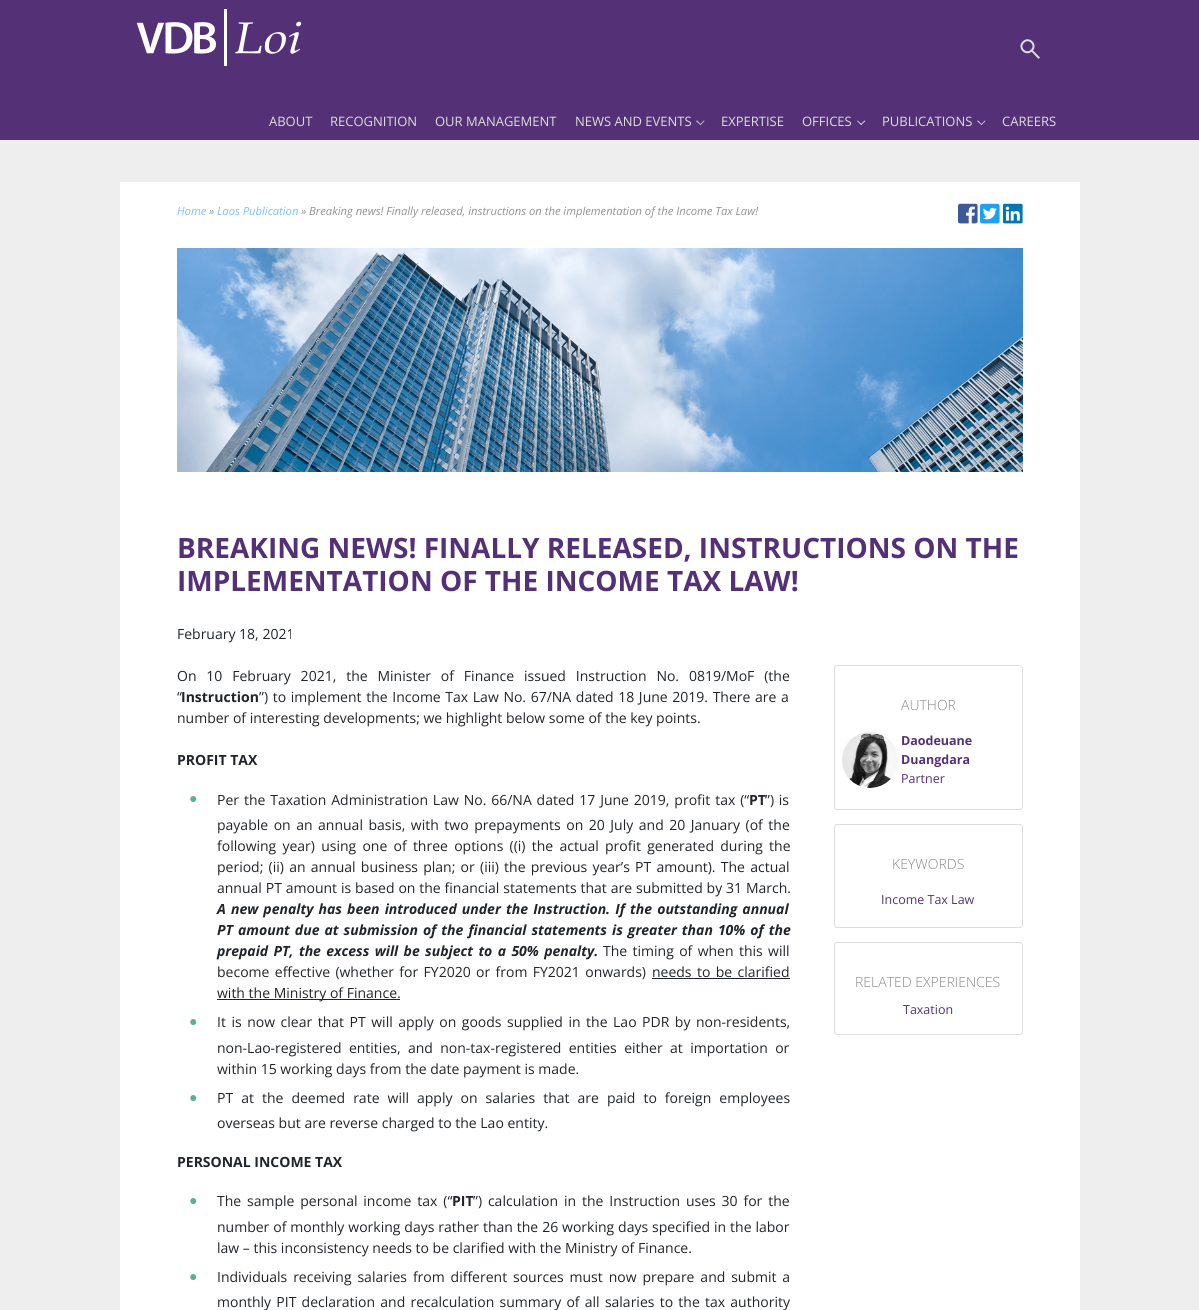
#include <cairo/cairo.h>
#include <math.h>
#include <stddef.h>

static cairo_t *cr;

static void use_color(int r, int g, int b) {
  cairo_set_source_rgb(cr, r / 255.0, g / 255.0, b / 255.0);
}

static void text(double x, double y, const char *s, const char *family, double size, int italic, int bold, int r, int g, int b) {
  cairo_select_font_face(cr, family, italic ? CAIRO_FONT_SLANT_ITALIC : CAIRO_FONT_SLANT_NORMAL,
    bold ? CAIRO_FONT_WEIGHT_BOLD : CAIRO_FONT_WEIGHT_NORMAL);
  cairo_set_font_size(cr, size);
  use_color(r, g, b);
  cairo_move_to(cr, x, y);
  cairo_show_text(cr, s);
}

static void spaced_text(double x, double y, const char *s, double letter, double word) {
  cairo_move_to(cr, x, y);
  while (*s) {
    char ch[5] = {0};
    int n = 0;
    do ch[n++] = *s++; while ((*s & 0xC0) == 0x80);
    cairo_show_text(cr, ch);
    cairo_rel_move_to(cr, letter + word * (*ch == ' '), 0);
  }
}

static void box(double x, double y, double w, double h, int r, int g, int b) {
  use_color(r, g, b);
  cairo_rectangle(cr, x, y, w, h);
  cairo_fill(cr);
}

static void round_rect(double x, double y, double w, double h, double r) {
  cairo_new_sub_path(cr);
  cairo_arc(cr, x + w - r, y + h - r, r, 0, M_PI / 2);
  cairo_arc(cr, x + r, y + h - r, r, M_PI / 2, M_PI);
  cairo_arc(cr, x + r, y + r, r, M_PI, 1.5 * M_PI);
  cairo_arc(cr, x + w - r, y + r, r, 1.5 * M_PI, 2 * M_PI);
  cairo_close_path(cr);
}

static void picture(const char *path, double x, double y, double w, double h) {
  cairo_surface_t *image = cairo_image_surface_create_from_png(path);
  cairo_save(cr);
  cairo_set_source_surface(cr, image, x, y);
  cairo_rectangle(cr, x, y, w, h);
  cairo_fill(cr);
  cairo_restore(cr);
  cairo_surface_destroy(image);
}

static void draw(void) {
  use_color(238, 238, 238);
  cairo_paint(cr);
  box(0, 0, 1199, 140, 84, 49, 118);
  picture("img_01.png", 136, 9, 166, 57);
  cairo_new_path(cr);
  cairo_move_to(cr, 1023.5, 42);
  cairo_curve_to(cr, 1029, 36.5, 1037.5, 45, 1031.5, 50.5);
  cairo_curve_to(cr, 1026, 56, 1017.5, 47.5, 1023.5, 42);
  cairo_close_path(cr);
  use_color(221, 221, 221);
  cairo_stroke(cr);
  cairo_new_path(cr);
  cairo_move_to(cr, 1031, 51);
  cairo_line_to(cr, 1032.5, 50);
  cairo_line_to(cr, 1039.5, 57);
  cairo_curve_to(cr, 1040.5, 58, 1039, 59, 1038, 58.5);
  cairo_close_path(cr);
  cairo_fill(cr);
  cairo_new_path(cr);
  cairo_move_to(cr, 704, 120.5);
  cairo_line_to(cr, 704.5, 121);
  cairo_line_to(cr, 700.5, 125);
  cairo_line_to(cr, 700, 124.5);
  cairo_close_path(cr);
  cairo_fill(cr);
  cairo_new_path(cr);
  cairo_move_to(cr, 697, 120.5);
  cairo_line_to(cr, 701, 124.5);
  cairo_line_to(cr, 700.5, 125);
  cairo_line_to(cr, 696, 121);
  cairo_close_path(cr);
  cairo_fill(cr);
  cairo_new_path(cr);
  cairo_move_to(cr, 864.5, 120.5);
  cairo_line_to(cr, 865.5, 121);
  cairo_line_to(cr, 861, 125);
  cairo_line_to(cr, 860.5, 124.5);
  cairo_close_path(cr);
  cairo_fill(cr);
  cairo_new_path(cr);
  cairo_move_to(cr, 857.5, 120.5);
  cairo_line_to(cr, 862, 124.5);
  cairo_line_to(cr, 861, 125);
  cairo_line_to(cr, 857, 121);
  cairo_close_path(cr);
  cairo_fill(cr);
  cairo_new_path(cr);
  cairo_move_to(cr, 985, 120.5);
  cairo_line_to(cr, 985.5, 121);
  cairo_line_to(cr, 981.5, 125);
  cairo_line_to(cr, 981, 124.5);
  cairo_close_path(cr);
  cairo_fill(cr);
  cairo_new_path(cr);
  cairo_move_to(cr, 978, 120.5);
  cairo_line_to(cr, 982, 124.5);
  cairo_line_to(cr, 981.5, 125);
  cairo_line_to(cr, 977, 121);
  cairo_close_path(cr);
  cairo_fill(cr);
  box(120, 182, 960, 1128, 255, 255, 255);
  picture("img_02.png", 958, 203, 20, 21);
  picture("img_03.png", 980, 203, 20, 21);
  picture("img_04.png", 1003, 203, 20, 21);
  picture("img_05.png", 177, 248, 846, 224);
  box(652, 978, 138, 1, 33, 37, 41);
  box(217, 999, 183, 1, 33, 37, 41);
  round_rect(834.5, 665.5, 188, 144, 2.5);
  use_color(221, 221, 221);
  cairo_set_line_width(cr, 1);
  cairo_stroke(cr);
  picture("img_06.png", 842, 732, 56, 56);
  round_rect(834.5, 824.5, 188, 103, 2.5);
  cairo_stroke(cr);
  round_rect(834.5, 942.5, 188, 92, 2.5);
  cairo_stroke(cr);
  text(269, 126, "ABOUT", "Open Sans", 13, 0, 0, 221, 221, 221);
  text(330, 126, "RECOGNITION", "Open Sans", 13, 0, 0, 221, 221, 221);
  text(435, 126, "OUR MANAGEMENT", "Open Sans", 13, 0, 0, 221, 221, 221);
  text(575, 126, "NEWS AND EVENTS", "Open Sans", 13, 0, 0, 221, 221, 221);
  text(721, 126, "EXPERTISE", "Open Sans", 13, 0, 0, 221, 221, 221);
  text(802, 126, "OFFICES", "Open Sans", 13, 0, 0, 221, 221, 221);
  text(882, 126, "PUBLICATIONS", "Open Sans", 13, 0, 0, 221, 221, 221);
  text(1002, 126, "CAREERS", "Open Sans", 13, 0, 0, 221, 221, 221);
  text(177, 215, "Home", "Open Sans", 11.2, 1, 0, 128, 189, 255);
  text(209, 215, "»", "Open Sans", 11.2, 1, 0, 144, 146, 148);
  text(217, 215, "Laos Publication", "Open Sans", 11.2, 1, 0, 128, 189, 255);
  text(301, 215, "» Breaking news! Finally released, instructions on the implementation of the Income Tax Law!", "Open Sans", 11.2, 1, 0, 144, 146, 148);
  text(177, 558, "BREAKING NEWS! FINALLY RELEASED, INSTRUCTIONS ON THE", "Open Sans", 28, 0, 1, 84, 49, 118);
  text(177, 591, "IMPLEMENTATION OF THE INCOME TAX LAW!", "Open Sans", 28, 0, 1, 84, 49, 118);
  text(177, 639, "February 18, 2021", "Open Sans", 14, 0, 0, 33, 37, 41);
  spaced_text(177, 681, "On 10 February 2021, the Minister of Finance issued Instruction No. 0819/MoF (the", 0, 6.25);
  text(177, 702, "“", "Open Sans", 14, 0, 0, 33, 37, 41);
  text(181, 702, "Instruction", "Open Sans", 14, 0, 1, 33, 37, 41);
  cairo_select_font_face(cr, "Open Sans", CAIRO_FONT_SLANT_NORMAL, CAIRO_FONT_WEIGHT_NORMAL);
  spaced_text(259, 702, "”) to implement the Income Tax Law No. 67/NA dated 18 June 2019. There are a", 0, 1);
  text(177, 723, "number of interesting developments; we highlight below some of the key points.", "Open Sans", 14, 0, 0, 33, 37, 41);
  text(177, 765, "PROFIT TAX", "Open Sans", 14, 0, 1, 33, 37, 41);
  text(189, 803, "●", "Liberation Sans", 14, 0, 1, 90, 177, 143);
  cairo_select_font_face(cr, "Open Sans", CAIRO_FONT_SLANT_NORMAL, CAIRO_FONT_WEIGHT_NORMAL);
  use_color(33, 37, 41);
  spaced_text(217, 805, "Per the Taxation Administration Law No. 66/NA dated 17 June 2019, profit tax (“", 0, 1.25);
  text(749, 805, "PT", "Open Sans", 14, 0, 1, 33, 37, 41);
  cairo_select_font_face(cr, "Open Sans", CAIRO_FONT_SLANT_NORMAL, CAIRO_FONT_WEIGHT_NORMAL);
  spaced_text(765, 805, "”) is", 0, 1);
  spaced_text(217, 830, "payable on an annual basis, with two prepayments on 20 July and 20 January (of the", 0, 1.9);
  spaced_text(217, 851, "following year) using one of three options ((i) the actual profit generated during the", 0, 2.6);
  spaced_text(217, 872, "period; (ii) an annual business plan; or (iii) the previous year’s PT amount). The actual", 0, 1.6);
  spaced_text(217, 893, "annual PT amount is based on the financial statements that are submitted by 31 March.", 0, 0.25);
  cairo_select_font_face(cr, "Open Sans", CAIRO_FONT_SLANT_ITALIC, CAIRO_FONT_WEIGHT_BOLD);
  spaced_text(217, 914, "A new penalty has been introduced under", 0, 1.5);
  spaced_text(506, 914, "the Instruction. If the outstanding annual", 0, 1.5);
  spaced_text(217, 935, "PT amount due at submission of the financial statements is greater than 10% of the", 0, 1.4);
  spaced_text(217, 956, "prepaid PT, the excess will be subject to a 50% penalty.", 0, 1.75);
  cairo_select_font_face(cr, "Open Sans", CAIRO_FONT_SLANT_NORMAL, CAIRO_FONT_WEIGHT_NORMAL);
  spaced_text(603, 956, "The timing of when this will", 0, 1.75);
  spaced_text(217, 977, "become effective (whether for FY2020 or from FY2021 onwards)", 0, 1.75);
  spaced_text(652, 977, "needs to be clarified", 0, 1.75);
  text(217, 998, "with the Ministry of Finance.", "Open Sans", 14, 0, 0, 33, 37, 41);
  text(189, 1026, "●", "Liberation Sans", 14, 0, 1, 90, 177, 143);
  cairo_select_font_face(cr, "Open Sans", CAIRO_FONT_SLANT_NORMAL, CAIRO_FONT_WEIGHT_NORMAL);
  use_color(33, 37, 41);
  spaced_text(217, 1027, "It is now clear that PT will apply on goods supplied in the Lao PDR by non-residents,", 0, 1.9);
  spaced_text(217, 1053, "non-Lao-registered entities, and non-tax-registered entities either at importation or", 0, 3.75);
  text(217, 1074, "within 15 working days from the date payment is made.", "Open Sans", 14, 0, 0, 33, 37, 41);
  text(189, 1102, "●", "Liberation Sans", 14, 0, 1, 90, 177, 143);
  cairo_select_font_face(cr, "Open Sans", CAIRO_FONT_SLANT_NORMAL, CAIRO_FONT_WEIGHT_NORMAL);
  use_color(33, 37, 41);
  spaced_text(217, 1103, "PT at the deemed rate will apply on salaries that are paid to foreign employees", 0, 4.4);
  text(217, 1128, "overseas but are reverse charged to the Lao entity.", "Open Sans", 14, 0, 0, 33, 37, 41);
  text(177, 1167, "PERSONAL INCOME TAX", "Open Sans", 14, 0, 1, 33, 37, 41);
  text(189, 1205, "●", "Liberation Sans", 14, 0, 1, 90, 177, 143);
  cairo_select_font_face(cr, "Open Sans", CAIRO_FONT_SLANT_NORMAL, CAIRO_FONT_WEIGHT_NORMAL);
  use_color(33, 37, 41);
  spaced_text(217, 1206, "The sample personal income tax (“", 0, 2.25);
  text(452, 1206, "PIT", "Open Sans", 14, 0, 1, 33, 37, 41);
  cairo_select_font_face(cr, "Open Sans", CAIRO_FONT_SLANT_NORMAL, CAIRO_FONT_WEIGHT_NORMAL);
  spaced_text(473, 1206, "”) calculation in the Instruction uses 30 for the", 0, 2.25);
  spaced_text(217, 1232, "number of monthly working days rather than the 26 working days specified in the labor", 0, 0.3);
  text(217, 1253, "law – this inconsistency needs to be clarified with the Ministry of Finance.", "Open Sans", 14, 0, 0, 33, 37, 41);
  text(189, 1281, "●", "Liberation Sans", 14, 0, 1, 90, 177, 143);
  cairo_select_font_face(cr, "Open Sans", CAIRO_FONT_SLANT_NORMAL, CAIRO_FONT_WEIGHT_NORMAL);
  use_color(33, 37, 41);
  spaced_text(217, 1282, "Individuals receiving salaries from different sources must now prepare and submit a", 0, 2.25);
  spaced_text(217, 1307, "monthly PIT declaration and recalculation summary of all salaries to the tax authority", 0, 1.6);
  text(901, 710, "AUTHOR", "Open Sans Light", 14, 0, 0, 136, 136, 136);
  text(901, 745, "Daodeuane", "Open Sans", 12.5, 0, 1, 84, 49, 118);
  text(901, 764, "Duangdara", "Open Sans", 12.5, 0, 1, 84, 49, 118);
  text(901, 783, "Partner", "Open Sans", 12.5, 0, 0, 84, 49, 118);
  text(892, 869, "KEYWORDS", "Open Sans Light", 14, 0, 0, 136, 136, 136);
  text(881, 904, "Income Tax Law", "Open Sans", 12.5, 0, 0, 84, 49, 118);
  text(855, 987, "RELATED EXPERIENCES", "Open Sans Light", 14, 0, 0, 136, 136, 136);
  text(903, 1014, "Taxation", "Open Sans", 12.5, 0, 0, 84, 49, 118);
}

int main(void) {
  cairo_surface_t *surface = cairo_image_surface_create(CAIRO_FORMAT_RGB24, 1199, 1310);
  cr = cairo_create(surface);
  cairo_font_options_t *options = cairo_font_options_create();
  cairo_font_options_set_hint_metrics(options, CAIRO_HINT_METRICS_OFF);
  cairo_font_options_set_hint_style(options, CAIRO_HINT_STYLE_NONE);
  cairo_set_font_options(cr, options);
  cairo_set_miter_limit(cr, 4);
  draw();
  cairo_surface_write_to_png(surface, "out.png");
  cairo_font_options_destroy(options);
  cairo_destroy(cr);
  cairo_surface_destroy(surface);
  return 0;
}
